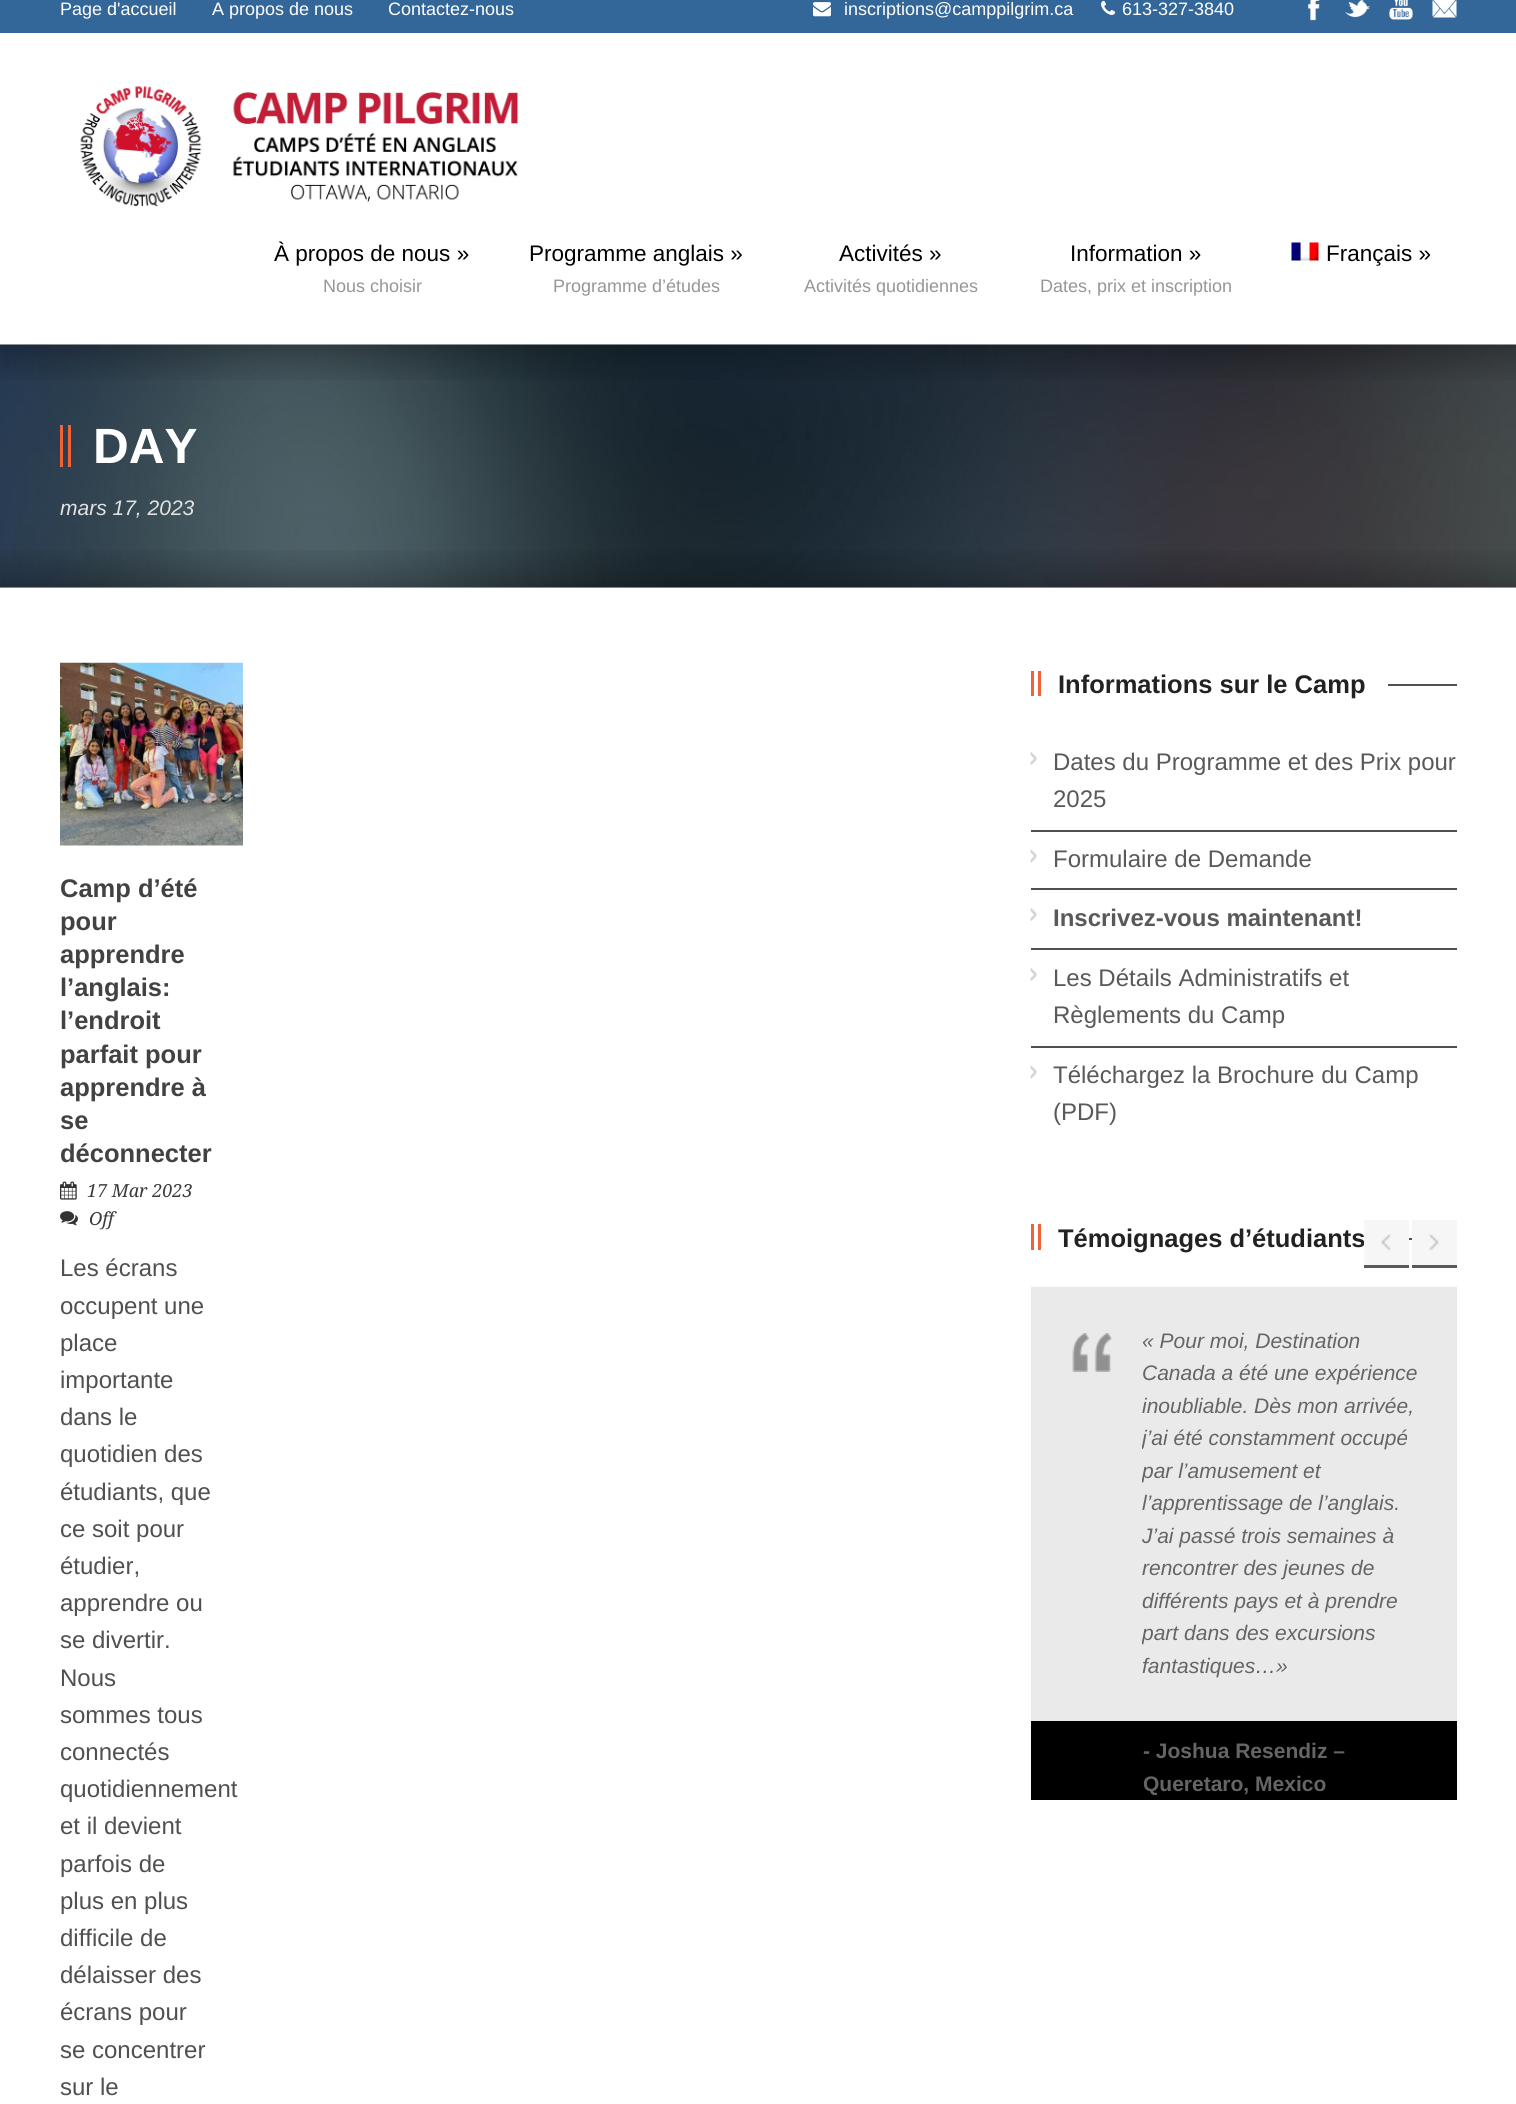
#include <cairo/cairo.h>
#include <math.h>
#include <stddef.h>

static cairo_t *cr;

static void use_color(int r, int g, int b) {
  cairo_set_source_rgb(cr, r / 255.0, g / 255.0, b / 255.0);
}

static void text(double x, double y, const char *s, const char *family, double size, int italic, int bold, int r, int g, int b) {
  cairo_select_font_face(cr, family, italic ? CAIRO_FONT_SLANT_ITALIC : CAIRO_FONT_SLANT_NORMAL,
    bold ? CAIRO_FONT_WEIGHT_BOLD : CAIRO_FONT_WEIGHT_NORMAL);
  cairo_set_font_size(cr, size);
  use_color(r, g, b);
  cairo_move_to(cr, x, y);
  cairo_show_text(cr, s);
}

static void box(double x, double y, double w, double h, int r, int g, int b) {
  use_color(r, g, b);
  cairo_rectangle(cr, x, y, w, h);
  cairo_fill(cr);
}

static void round_rect(double x, double y, double w, double h, double r) {
  cairo_new_sub_path(cr);
  cairo_arc(cr, x + w - r, y + h - r, r, 0, M_PI / 2);
  cairo_arc(cr, x + r, y + h - r, r, M_PI / 2, M_PI);
  cairo_arc(cr, x + r, y + r, r, M_PI, 1.5 * M_PI);
  cairo_arc(cr, x + w - r, y + r, r, 1.5 * M_PI, 2 * M_PI);
  cairo_close_path(cr);
}

static void shadow(double x, double y, double w, double h, double r, double blur, double alpha) {
  cairo_push_group_with_content(cr, CAIRO_CONTENT_ALPHA);
  cairo_set_operator(cr, CAIRO_OPERATOR_SOURCE);
  for (int i = 15; i >= -15 && fmin(w, h) + blur * i / 3 > 0; i -= 2) {
    double e = blur * i / 6;
    cairo_set_source_rgba(cr, 0, 0, 0, alpha * erfc((i - 1) / 8.5) / 2);
    round_rect(x - e, y - e, w + 2 * e, h + 2 * e, fmax(0, fmin(r + e + blur * .6, fmin(w, h) / 2 + e)));
    cairo_fill(cr);
  }
  cairo_pattern_t *soft = cairo_pop_group(cr);
  cairo_mask(cr, soft);
  cairo_pattern_destroy(soft);
}

static void picture(const char *path, double x, double y, double w, double h) {
  cairo_surface_t *image = cairo_image_surface_create_from_png(path);
  cairo_save(cr);
  cairo_set_source_surface(cr, image, x, y);
  cairo_rectangle(cr, x, y, w, h);
  cairo_fill(cr);
  cairo_restore(cr);
  cairo_surface_destroy(image);
}

static void draw(void) {
  use_color(237, 237, 237);
  cairo_paint(cr);
  box(0, 0, 1516, 33, 51, 102, 153);
  picture("img_01.png", 813, 2, 18, 15);
  picture("img_02.png", 1101, 0, 15, 15);
  picture("img_03.png", 1308, 0, 12, 21);
  picture("img_04.png", 1345, 0, 25, 18);
  picture("img_05.png", 1389, 0, 24, 20);
  picture("img_06.png", 1432, 0, 25, 18);
  box(0, 33, 1516, 312, 255, 255, 255);
  picture("img_07.png", 80, 86, 439, 121);
  picture("img_08.png", 1291, 242, 28, 19);
  picture("img_09.png", 0, 344, 1516, 244);
  picture("img_10.png", 0, 344, 1516, 36);
  box(60, 425, 3, 42, 241, 99, 55);
  box(68, 425, 3, 42, 241, 99, 55);
  picture("img_11.png", 0, 550, 1516, 38);
  box(0, 588, 1516, 1516, 255, 255, 255);
  picture("img_12.png", 60, 662, 183, 184);
  picture("img_13.png", 60, 1181, 17, 19);
  picture("img_14.png", 60, 1211, 18, 15);
  box(1031, 671, 3, 25, 241, 99, 55);
  box(1038, 671, 3, 25, 241, 99, 55);
  box(1388, 684, 69, 2, 80, 80, 80);
  picture("img_15.png", 1030, 752, 7, 13);
  box(1031, 830, 426, 2, 80, 80, 80);
  picture("img_16.png", 1030, 849, 7, 14);
  box(1031, 888, 426, 2, 80, 80, 80);
  picture("img_15.png", 1030, 908, 7, 13);
  box(1031, 948, 426, 2, 80, 80, 80);
  picture("img_15.png", 1030, 968, 7, 13);
  box(1031, 1046, 426, 2, 80, 80, 80);
  picture("img_16.png", 1030, 1065, 7, 14);
  box(1031, 1224, 3, 26, 241, 99, 55);
  box(1038, 1224, 3, 26, 241, 99, 55);
  box(1409, 1238, 3, 2, 80, 80, 80);
  box(1364, 1265, 45, 3, 89, 89, 89);
  box(1412, 1220, 45, 45, 246, 246, 246);
  picture("img_18.png", 1429, 1234, 10, 17);
  box(1412, 1265, 45, 3, 89, 89, 89);
  box(1031, 1721, 426, 79, 0, 0, 0);
  cairo_save(cr);
  cairo_rectangle(cr, 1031, 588, 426, 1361);
  cairo_clip(cr);
  use_color(0, 0, 0);
  shadow(1031, 1289, 426, 433, 0, 1.5, 0.35);
  cairo_restore(cr);
  box(1031, 1287, 426, 434, 234, 234, 234);
  picture("img_19.png", 1072, 1333, 40, 39);
  text(60, 15, "Page d'accueil", "Liberation Sans", 18, 0, 0, 255, 255, 255);
  text(212, 15, "A propos de nous", "Liberation Sans", 18, 0, 0, 255, 255, 255);
  text(388, 15, "Contactez-nous", "Liberation Sans", 18, 0, 0, 255, 255, 255);
  text(844, 15, "inscriptions@camppilgrim.ca", "Liberation Sans", 18, 0, 0, 255, 255, 255);
  text(1122, 15, "613-327-3840", "Liberation Sans", 18, 0, 0, 255, 255, 255);
  text(274, 261, "À propos de nous »", "Liberation Sans", 22.5, 0, 0, 0, 0, 0);
  text(323, 292, "Nous choisir", "Liberation Sans", 18, 0, 0, 150, 150, 150);
  text(529, 261, "Programme anglais »", "Liberation Sans", 22.5, 0, 0, 0, 0, 0);
  text(553, 292, "Programme d’études", "Liberation Sans", 18, 0, 0, 150, 150, 150);
  text(839, 261, "Activités »", "Liberation Sans", 22.5, 0, 0, 0, 0, 0);
  text(804, 292, "Activités quotidiennes", "Liberation Sans", 18, 0, 0, 150, 150, 150);
  text(1070, 261, "Information »", "Liberation Sans", 22.5, 0, 0, 0, 0, 0);
  text(1040, 292, "Dates, prix et inscription", "Liberation Sans", 18, 0, 0, 150, 150, 150);
  text(1326, 261, "Français »", "Liberation Sans", 22.5, 0, 0, 0, 0, 0);
  text(93, 463, "DAY", "Liberation Sans", 49.5, 0, 1, 255, 255, 255);
  text(60, 515, "mars 17, 2023", "Liberation Sans", 21, 1, 0, 226, 226, 226);
  text(60, 897, "Camp d’été", "Liberation Sans", 25.5, 0, 1, 66, 66, 66);
  text(60, 930, "pour", "Liberation Sans", 25.5, 0, 1, 66, 66, 66);
  text(60, 963, "apprendre", "Liberation Sans", 25.5, 0, 1, 66, 66, 66);
  text(60, 996, "l’anglais:", "Liberation Sans", 25.5, 0, 1, 66, 66, 66);
  text(60, 1029, "l’endroit", "Liberation Sans", 25.5, 0, 1, 66, 66, 66);
  text(60, 1063, "parfait pour", "Liberation Sans", 25.5, 0, 1, 66, 66, 66);
  text(60, 1096, "apprendre à", "Liberation Sans", 25.5, 0, 1, 66, 66, 66);
  text(60, 1129, "se", "Liberation Sans", 25.5, 0, 1, 66, 66, 66);
  text(60, 1162, "déconnecter", "Liberation Sans", 25.5, 0, 1, 66, 66, 66);
  text(87, 1197, "17 Mar 2023", "Droid Serif", 18, 1, 0, 58, 58, 58);
  text(89, 1225, "Off", "Droid Serif", 18, 1, 0, 58, 58, 58);
  text(60, 1276, "Les écrans", "Liberation Sans", 24, 0, 0, 80, 80, 80);
  text(60, 1314, "occupent une", "Liberation Sans", 24, 0, 0, 80, 80, 80);
  text(60, 1351, "place", "Liberation Sans", 24, 0, 0, 80, 80, 80);
  text(60, 1388, "importante", "Liberation Sans", 24, 0, 0, 80, 80, 80);
  text(60, 1425, "dans le", "Liberation Sans", 24, 0, 0, 80, 80, 80);
  text(60, 1462, "quotidien des", "Liberation Sans", 24, 0, 0, 80, 80, 80);
  text(60, 1500, "étudiants, que", "Liberation Sans", 24, 0, 0, 80, 80, 80);
  text(60, 1537, "ce soit pour", "Liberation Sans", 24, 0, 0, 80, 80, 80);
  text(60, 1574, "étudier,", "Liberation Sans", 24, 0, 0, 80, 80, 80);
  text(60, 1611, "apprendre ou", "Liberation Sans", 24, 0, 0, 80, 80, 80);
  text(60, 1648, "se divertir.", "Liberation Sans", 24, 0, 0, 80, 80, 80);
  text(60, 1686, "Nous", "Liberation Sans", 24, 0, 0, 80, 80, 80);
  text(60, 1723, "sommes tous", "Liberation Sans", 24, 0, 0, 80, 80, 80);
  text(60, 1760, "connectés", "Liberation Sans", 24, 0, 0, 80, 80, 80);
  text(60, 1797, "quotidiennement", "Liberation Sans", 24, 0, 0, 80, 80, 80);
  text(60, 1834, "et il devient", "Liberation Sans", 24, 0, 0, 80, 80, 80);
  text(60, 1872, "parfois de", "Liberation Sans", 24, 0, 0, 80, 80, 80);
  text(60, 1909, "plus en plus", "Liberation Sans", 24, 0, 0, 80, 80, 80);
  text(60, 1946, "difficile de", "Liberation Sans", 24, 0, 0, 80, 80, 80);
  text(60, 1983, "délaisser des", "Liberation Sans", 24, 0, 0, 80, 80, 80);
  text(60, 2020, "écrans pour", "Liberation Sans", 24, 0, 0, 80, 80, 80);
  text(60, 2058, "se concentrer", "Liberation Sans", 24, 0, 0, 80, 80, 80);
  text(60, 2095, "sur le", "Liberation Sans", 24, 0, 0, 80, 80, 80);
  text(1058, 693, "Informations sur le Camp", "Liberation Sans", 25.5, 0, 1, 34, 34, 34);
  text(1053, 770, "Dates du Programme et des Prix pour", "Liberation Sans", 24, 0, 0, 89, 89, 89);
  text(1053, 807, "2025", "Liberation Sans", 24, 0, 0, 89, 89, 89);
  text(1053, 867, "Formulaire de Demande", "Liberation Sans", 24, 0, 0, 89, 89, 89);
  text(1053, 926, "Inscrivez-vous maintenant!", "Liberation Sans", 24, 0, 1, 89, 89, 89);
  text(1053, 986, "Les Détails Administratifs et", "Liberation Sans", 24, 0, 0, 89, 89, 89);
  text(1053, 1023, "Règlements du Camp", "Liberation Sans", 24, 0, 0, 89, 89, 89);
  text(1053, 1083, "Téléchargez la Brochure du Camp", "Liberation Sans", 24, 0, 0, 89, 89, 89);
  text(1053, 1120, "(PDF)", "Liberation Sans", 24, 0, 0, 89, 89, 89);
  text(1058, 1247, "Témoignages d’étudiants", "Liberation Sans", 25.5, 0, 1, 34, 34, 34);
  box(1364, 1220, 45, 45, 246, 246, 246);
  picture("img_17.png", 1381, 1234, 10, 17);
  text(1142, 1348, "« Pour moi, Destination", "Liberation Sans", 21, 1, 0, 101, 101, 101);
  text(1142, 1380, "Canada a été une expérience", "Liberation Sans", 21, 1, 0, 101, 101, 101);
  text(1142, 1413, "inoubliable. Dès mon arrivée,", "Liberation Sans", 21, 1, 0, 101, 101, 101);
  cairo_save(cr);
  cairo_rectangle(cr, 1142, 1325, 285, 358);
  cairo_clip(cr);
  text(1142, 1445, "j’ai été constamment occupé", "Liberation Sans", 21, 1, 0, 101, 101, 101);
  text(1142, 1478, "par l’amusement et", "Liberation Sans", 21, 1, 0, 101, 101, 101);
  cairo_restore(cr);
  text(1142, 1510, "l’apprentissage de l’anglais.", "Liberation Sans", 21, 1, 0, 101, 101, 101);
  text(1142, 1543, "J’ai passé trois semaines à", "Liberation Sans", 21, 1, 0, 101, 101, 101);
  text(1142, 1575, "rencontrer des jeunes de", "Liberation Sans", 21, 1, 0, 101, 101, 101);
  text(1142, 1608, "différents pays et à prendre", "Liberation Sans", 21, 1, 0, 101, 101, 101);
  cairo_save(cr);
  cairo_rectangle(cr, 1142, 1325, 285, 358);
  cairo_clip(cr);
  text(1142, 1640, "part dans des excursions", "Liberation Sans", 21, 1, 0, 101, 101, 101);
  cairo_restore(cr);
  text(1142, 1673, "fantastiques", "Liberation Sans", 21, 1, 0, 101, 101, 101);
  text(1255, 1673, "…", "Liberation Sans", 21, 1, 0, 89, 89, 89);
  text(1276, 1673, "»", "Liberation Sans", 21, 1, 0, 101, 101, 101);
  text(1143, 1758, "- Joshua Resendiz –", "Liberation Sans", 21, 0, 1, 101, 101, 101);
  text(1143, 1791, "Queretaro, Mexico", "Liberation Sans", 21, 0, 1, 101, 101, 101);
}

int main(void) {
  cairo_surface_t *surface = cairo_image_surface_create(CAIRO_FORMAT_RGB24, 1516, 2104);
  cr = cairo_create(surface);
  cairo_font_options_t *options = cairo_font_options_create();
  cairo_font_options_set_hint_metrics(options, CAIRO_HINT_METRICS_OFF);
  cairo_font_options_set_hint_style(options, CAIRO_HINT_STYLE_NONE);
  cairo_set_font_options(cr, options);
  cairo_set_miter_limit(cr, 4);
  draw();
  cairo_surface_write_to_png(surface, "out.png");
  cairo_font_options_destroy(options);
  cairo_destroy(cr);
  cairo_surface_destroy(surface);
  return 0;
}
